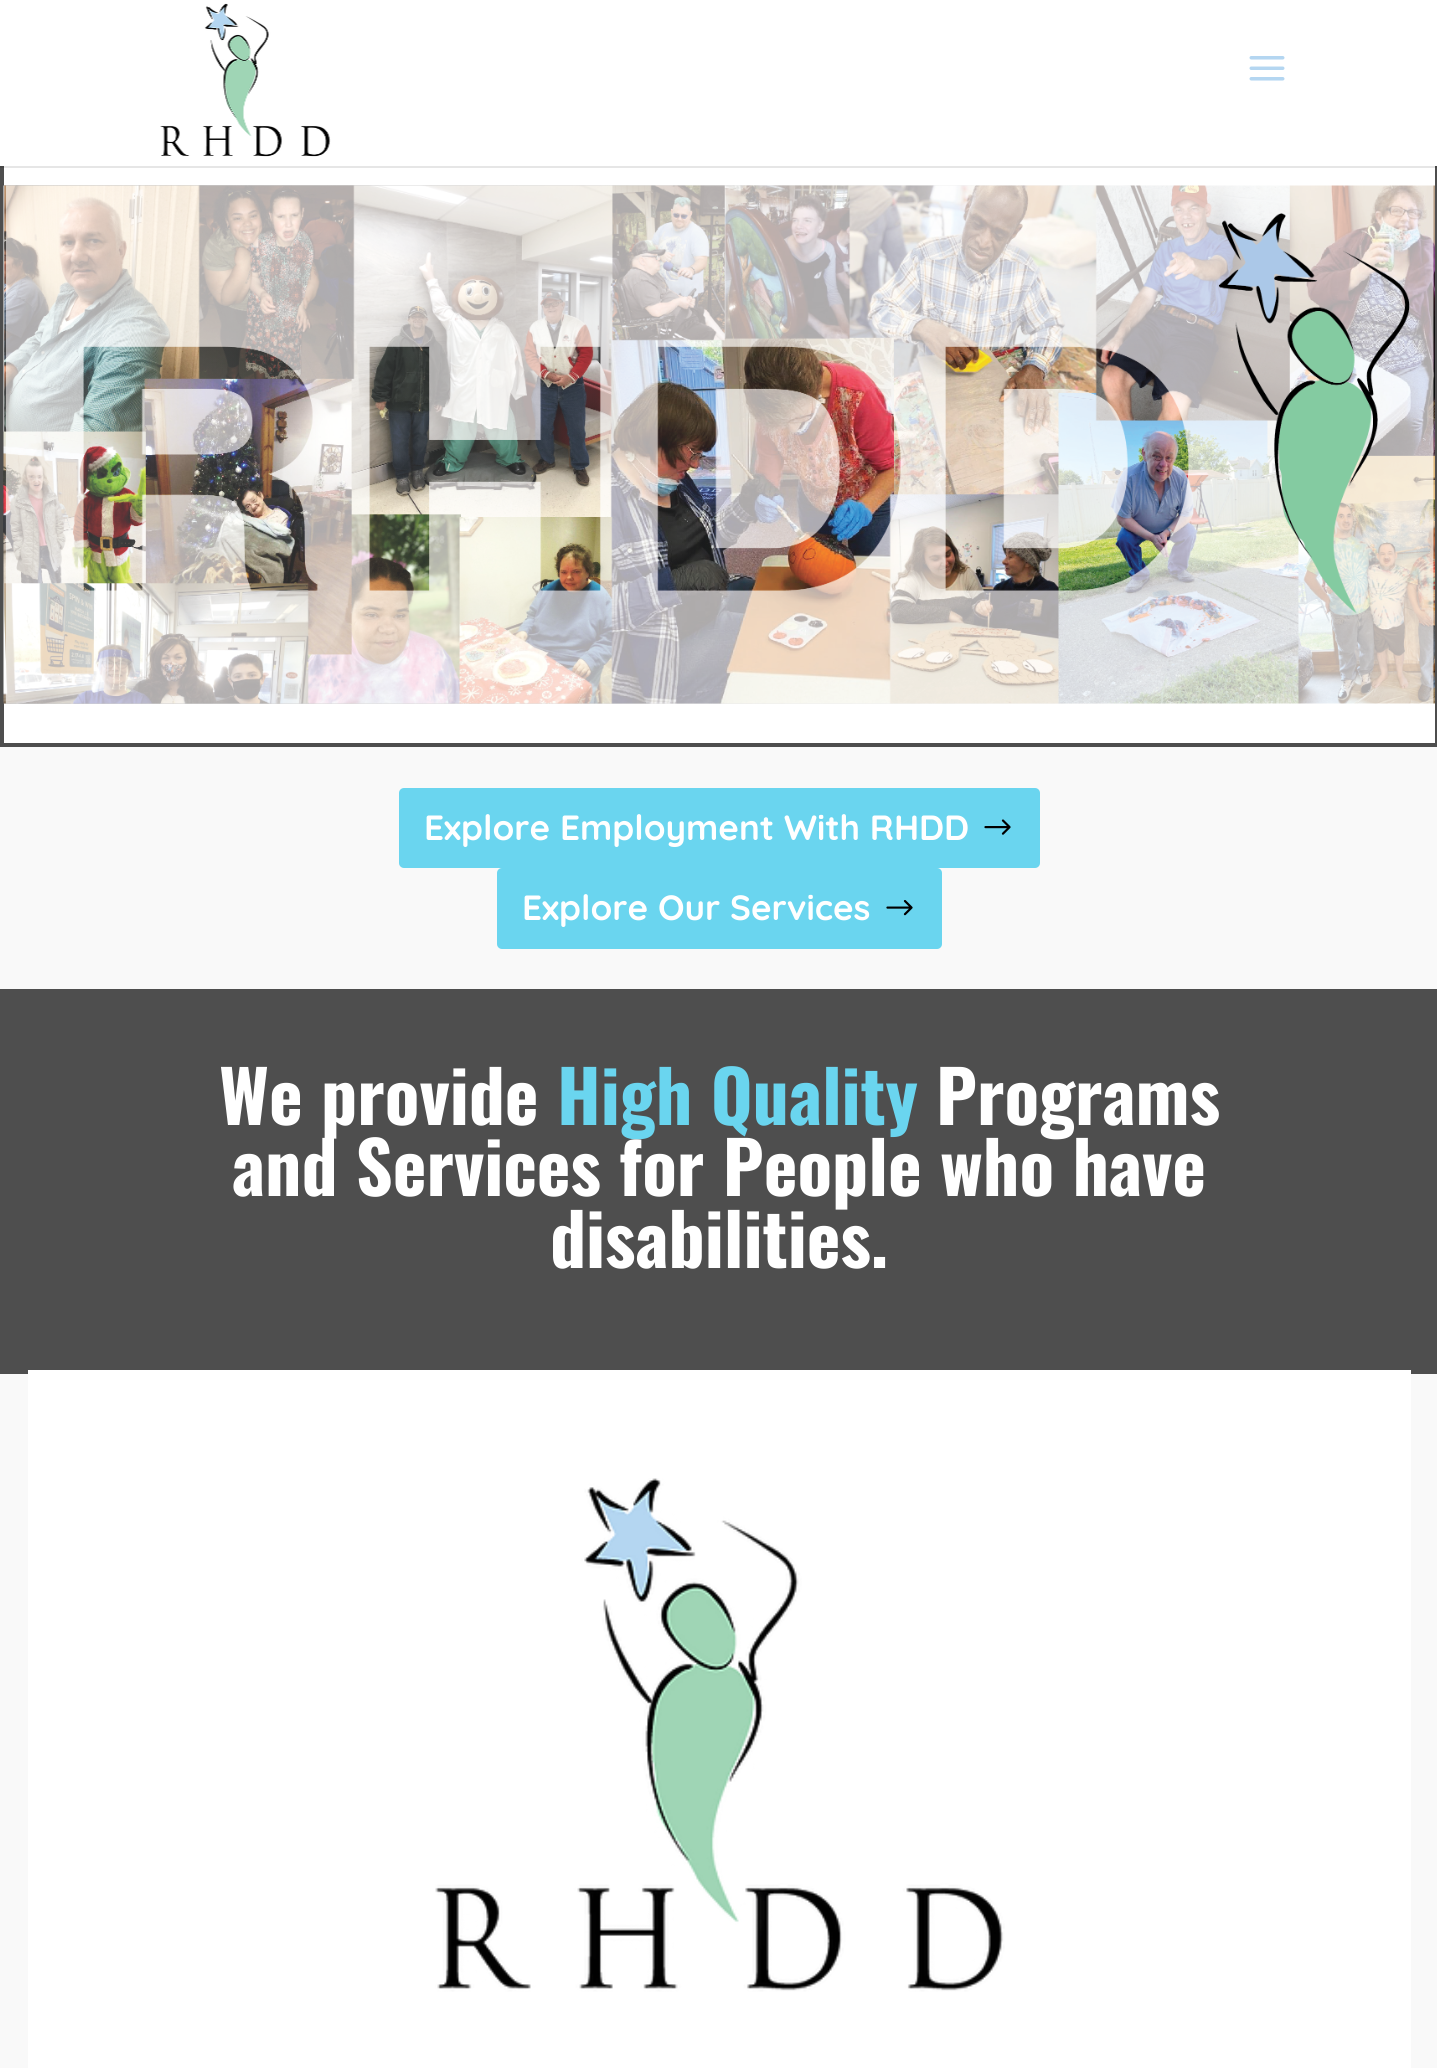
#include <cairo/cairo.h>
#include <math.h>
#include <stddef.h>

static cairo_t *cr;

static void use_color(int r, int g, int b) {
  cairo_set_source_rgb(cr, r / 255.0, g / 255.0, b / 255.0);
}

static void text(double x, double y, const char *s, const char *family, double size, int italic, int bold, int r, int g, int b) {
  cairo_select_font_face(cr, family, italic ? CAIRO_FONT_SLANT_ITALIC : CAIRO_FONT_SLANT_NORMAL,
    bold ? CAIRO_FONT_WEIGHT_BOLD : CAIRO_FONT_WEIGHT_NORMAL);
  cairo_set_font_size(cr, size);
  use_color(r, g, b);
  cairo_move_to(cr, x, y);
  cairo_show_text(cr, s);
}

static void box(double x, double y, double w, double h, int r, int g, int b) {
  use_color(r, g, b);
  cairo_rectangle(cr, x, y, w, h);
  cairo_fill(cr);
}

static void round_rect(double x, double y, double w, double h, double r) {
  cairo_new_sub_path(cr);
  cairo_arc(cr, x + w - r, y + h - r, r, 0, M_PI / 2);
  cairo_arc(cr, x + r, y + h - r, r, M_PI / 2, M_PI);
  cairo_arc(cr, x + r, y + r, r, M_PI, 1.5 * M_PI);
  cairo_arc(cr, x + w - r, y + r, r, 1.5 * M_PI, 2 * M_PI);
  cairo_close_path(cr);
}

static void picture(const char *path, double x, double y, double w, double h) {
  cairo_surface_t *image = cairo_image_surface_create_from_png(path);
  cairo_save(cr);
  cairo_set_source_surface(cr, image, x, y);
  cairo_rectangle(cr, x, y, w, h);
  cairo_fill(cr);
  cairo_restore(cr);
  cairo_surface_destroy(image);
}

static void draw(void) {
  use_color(249, 249, 249);
  cairo_paint(cr);
  box(4, 166, 1431, 577, 255, 255, 255);
  cairo_rectangle(cr, 2, 144, 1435, 601);
  use_color(78, 78, 78);
  cairo_set_line_width(cr, 4);
  cairo_stroke(cr);
  cairo_set_source_rgba(cr, 0, 0, 0, 0.1);
  cairo_new_path(cr);
  cairo_move_to(cr, 0, 166);
  cairo_line_to(cr, 0, 168);
  cairo_line_to(cr, 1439, 168);
  cairo_line_to(cr, 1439, 2);
  cairo_line_to(cr, 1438, 2);
  cairo_line_to(cr, 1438, 166);
  cairo_close_path(cr);
  cairo_fill(cr);
  box(0, 0, 1437, 166, 255, 255, 255);
  picture("img_01.png", 160, 3, 171, 154);
  picture("img_02.png", 1249, 56, 36, 25);
  picture("img_03.png", 3, 185, 1432, 519);
  use_color(106, 213, 239);
  round_rect(399, 788, 641, 80, 5);
  cairo_fill(cr);
  picture("img_04.png", 984, 819, 27, 16);
  round_rect(497, 868, 445, 81, 5);
  cairo_fill(cr);
  picture("img_05.png", 886, 900, 27, 16);
  box(0, 989, 1437, 385, 78, 78, 78);
  box(28, 1370, 1383, 698, 255, 255, 255);
  picture("img_06.png", 435, 1478, 570, 514);
  text(424, 840, "Explore Employment With RHDD", "Quicksand", 35, 0, 1, 255, 255, 255);
  text(522, 920, "Explore Our Services", "Quicksand", 35, 0, 1, 255, 255, 255);
  text(219, 1125, "We provide", "Oswald", 71.75, 0, 1, 255, 255, 255);
  text(557, 1125, "High Quality", "Oswald", 71.75, 0, 1, 106, 213, 239);
  text(936, 1125, "Programs", "Oswald", 71.75, 0, 1, 255, 255, 255);
  text(232, 1196, "and Services for People who have", "Oswald", 71.75, 0, 1, 255, 255, 255);
  text(550, 1268, "disabilities.", "Oswald", 71.75, 0, 1, 255, 255, 255);
}

int main(void) {
  cairo_surface_t *surface = cairo_image_surface_create(CAIRO_FORMAT_RGB24, 1437, 2068);
  cr = cairo_create(surface);
  cairo_font_options_t *options = cairo_font_options_create();
  cairo_font_options_set_hint_metrics(options, CAIRO_HINT_METRICS_OFF);
  cairo_font_options_set_hint_style(options, CAIRO_HINT_STYLE_NONE);
  cairo_set_font_options(cr, options);
  cairo_set_miter_limit(cr, 4);
  draw();
  cairo_surface_write_to_png(surface, "out.png");
  cairo_font_options_destroy(options);
  cairo_destroy(cr);
  cairo_surface_destroy(surface);
  return 0;
}
